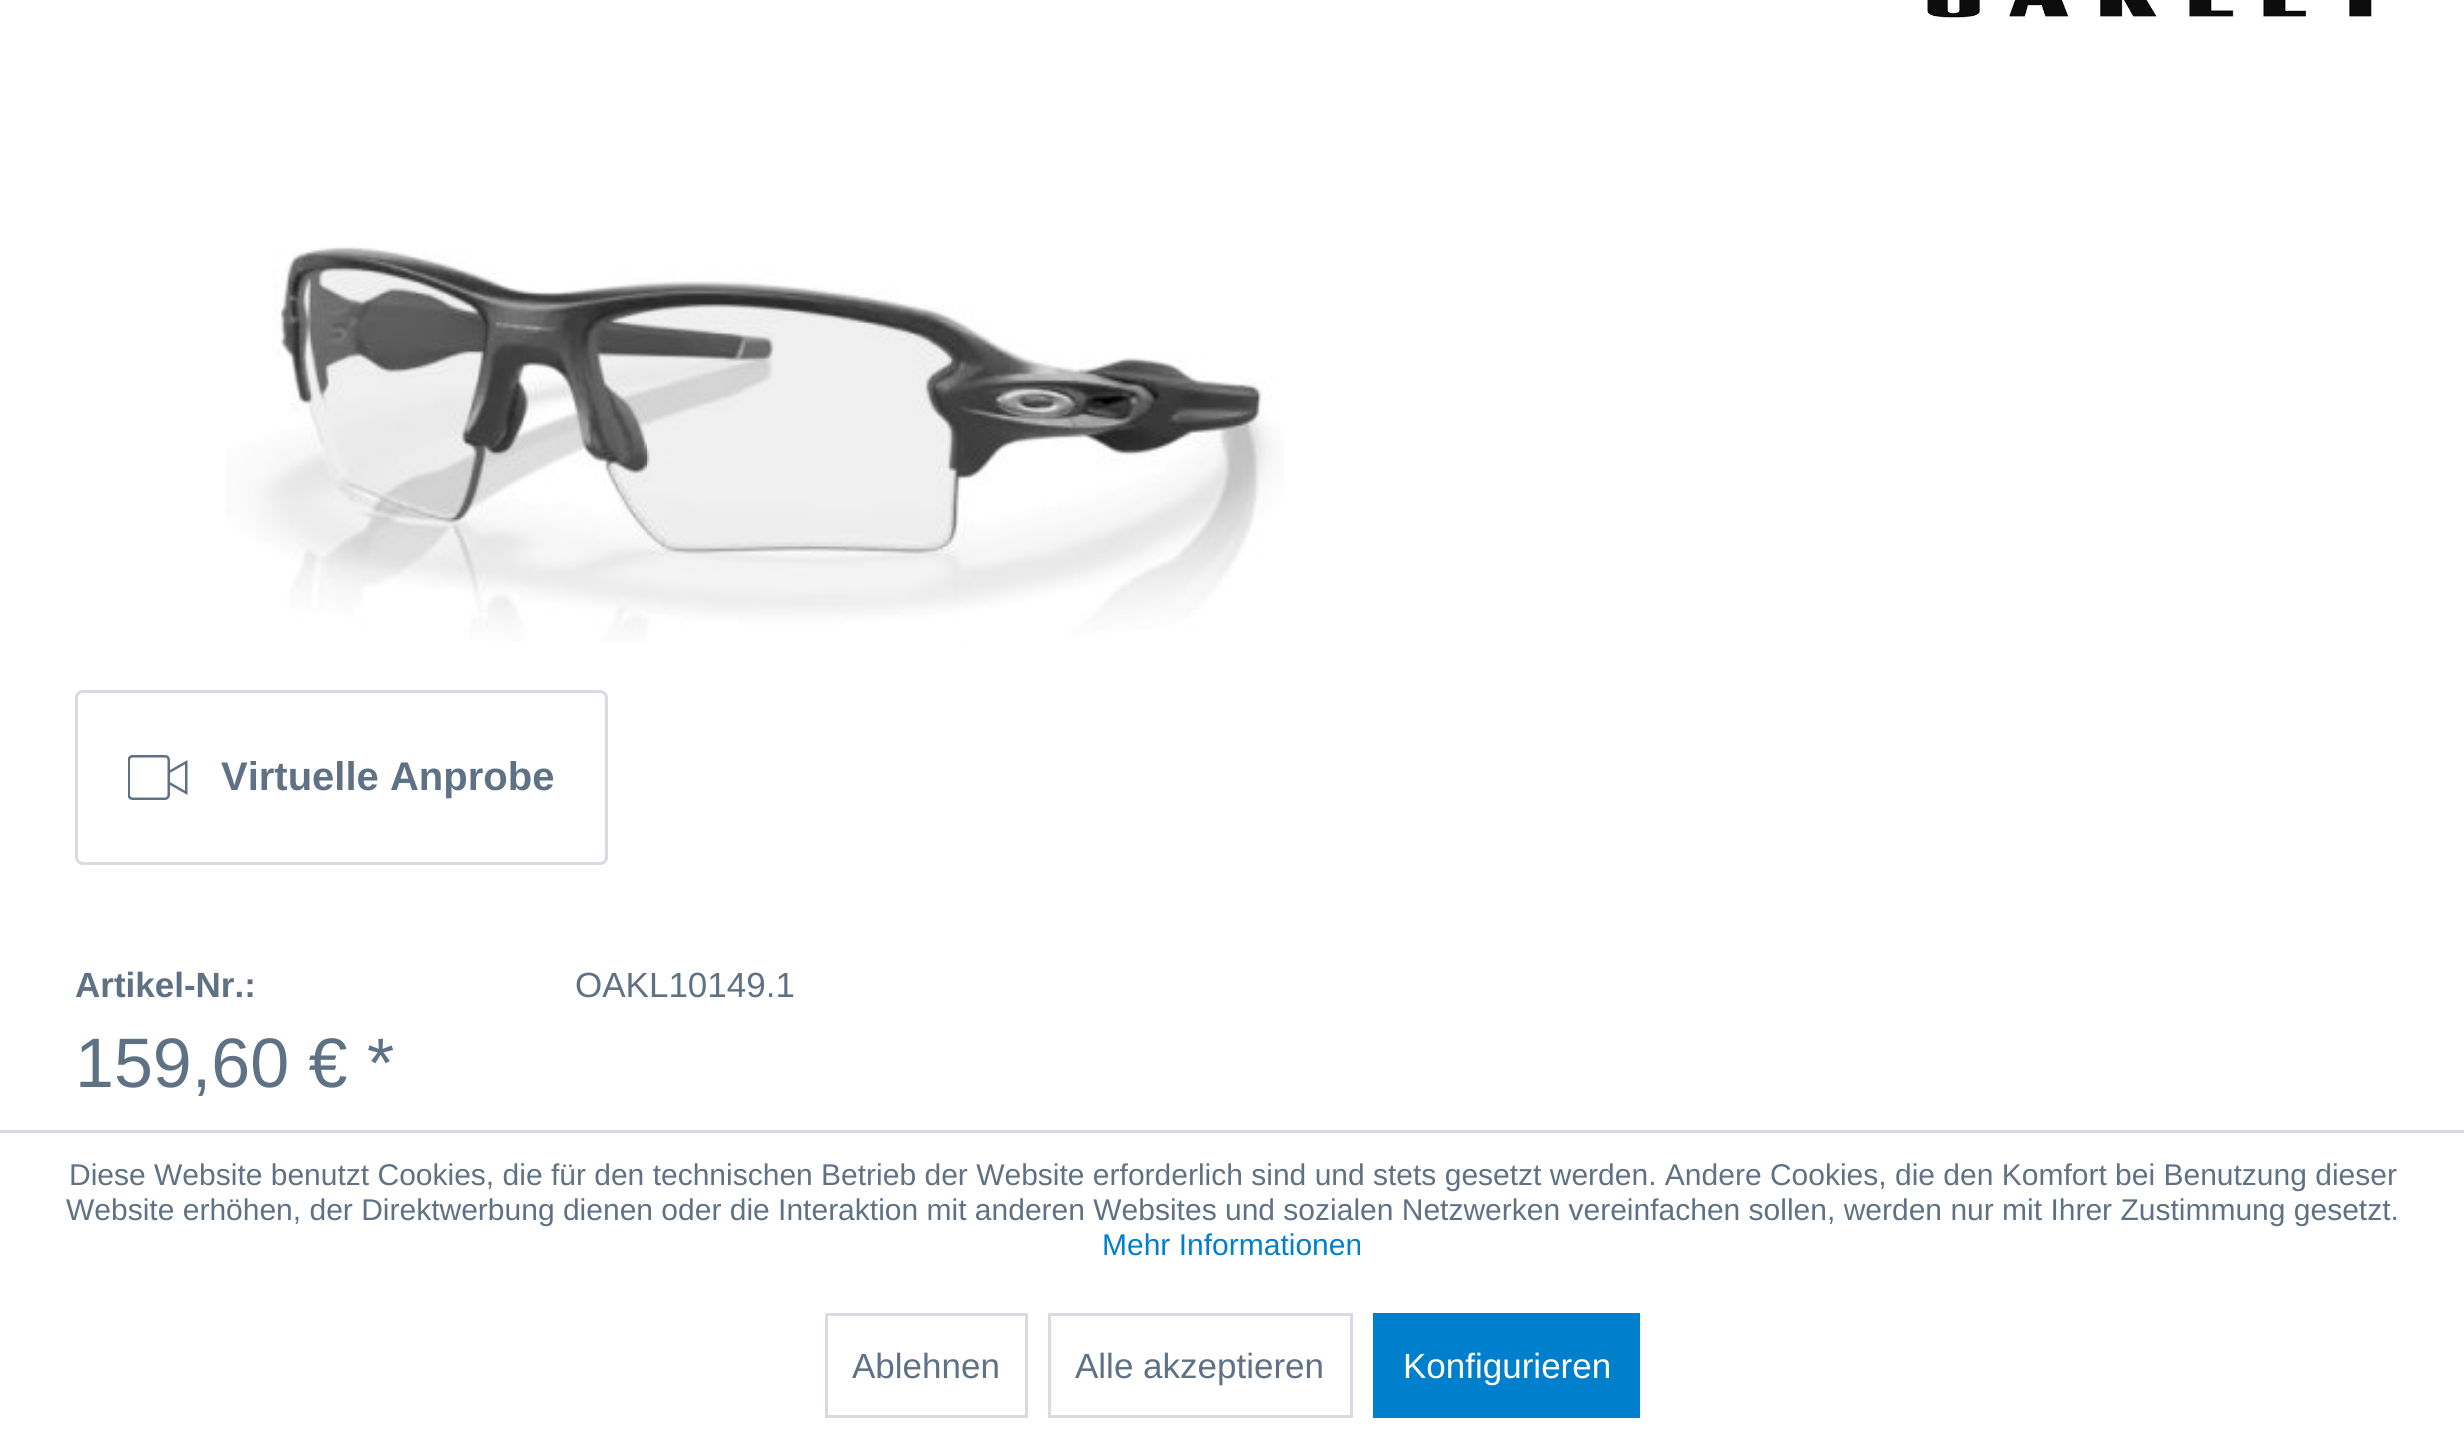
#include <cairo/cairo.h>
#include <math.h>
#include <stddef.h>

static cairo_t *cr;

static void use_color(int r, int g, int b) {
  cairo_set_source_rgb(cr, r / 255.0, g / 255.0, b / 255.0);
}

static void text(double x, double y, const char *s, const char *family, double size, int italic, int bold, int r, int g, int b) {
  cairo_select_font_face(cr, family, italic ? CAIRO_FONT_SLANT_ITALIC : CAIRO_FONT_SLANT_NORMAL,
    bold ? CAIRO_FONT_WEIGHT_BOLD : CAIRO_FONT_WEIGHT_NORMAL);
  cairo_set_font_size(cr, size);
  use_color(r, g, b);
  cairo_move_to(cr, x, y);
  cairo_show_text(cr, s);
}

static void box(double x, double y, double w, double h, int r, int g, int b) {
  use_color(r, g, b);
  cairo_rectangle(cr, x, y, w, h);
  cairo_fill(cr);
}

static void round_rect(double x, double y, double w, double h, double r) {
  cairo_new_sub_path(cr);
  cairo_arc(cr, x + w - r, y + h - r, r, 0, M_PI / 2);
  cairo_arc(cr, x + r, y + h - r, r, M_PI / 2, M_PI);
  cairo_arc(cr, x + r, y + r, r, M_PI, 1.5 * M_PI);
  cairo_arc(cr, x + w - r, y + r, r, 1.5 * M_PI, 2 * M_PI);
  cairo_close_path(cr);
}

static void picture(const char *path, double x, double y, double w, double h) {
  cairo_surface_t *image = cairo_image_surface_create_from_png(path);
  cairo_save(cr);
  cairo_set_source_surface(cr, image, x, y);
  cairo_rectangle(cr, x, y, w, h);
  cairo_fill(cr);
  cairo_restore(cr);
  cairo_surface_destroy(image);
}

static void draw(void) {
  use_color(255, 255, 255);
  cairo_paint(cr);
  picture("img_01.png", 1927, 0, 445, 18);
  picture("img_02.png", 226, 246, 1058, 396);
  round_rect(76.5, 691.5, 530, 172, 6.5);
  use_color(218, 218, 229);
  cairo_set_line_width(cr, 3);
  cairo_stroke(cr);
  picture("img_03.png", 128, 755, 60, 45);
  box(0, 1130, 2464, 3, 218, 218, 229);
  cairo_rectangle(cr, 826.5, 1314.5, 200, 102);
  cairo_stroke(cr);
  cairo_rectangle(cr, 1049.5, 1314.5, 302, 102);
  cairo_stroke(cr);
  box(1373, 1313, 267, 105, 0, 128, 204);
  text(221, 790, "Virtuelle Anprobe", "Liberation Sans", 40, 0, 1, 95, 114, 133);
  text(75, 997, "Artikel-Nr.:", "Liberation Sans", 35, 0, 1, 95, 114, 133);
  text(575, 997, "OAKL10149.1", "Liberation Sans", 35, 0, 0, 95, 114, 133);
  text(75, 1087, "159,60 € *", "Liberation Sans", 70, 0, 0, 95, 114, 133);
  text(69, 1185, "Diese Website benutzt Cookies, die für den technischen Betrieb der Website erforderlich sind und stets gesetzt werden. Andere Cookies, die den Komfort bei Benutzung dieser", "Liberation Sans", 30, 0, 0, 95, 114, 133);
  text(66, 1220, "Website erhöhen, der Direktwerbung dienen oder die Interaktion mit anderen Websites und sozialen Netzwerken vereinfachen sollen, werden nur mit Ihrer Zustimmung gesetzt.", "Liberation Sans", 30, 0, 0, 95, 114, 133);
  text(1102, 1255, "Mehr Informationen", "Liberation Sans", 30, 0, 0, 0, 128, 204);
  text(852, 1378, "Ablehnen", "Liberation Sans", 35, 0, 0, 95, 114, 133);
  text(1075, 1378, "Alle akzeptieren", "Liberation Sans", 35, 0, 0, 95, 114, 133);
  text(1403, 1378, "Konfigurieren", "Liberation Sans", 35, 0, 0, 255, 255, 255);
}

int main(void) {
  cairo_surface_t *surface = cairo_image_surface_create(CAIRO_FORMAT_RGB24, 2464, 1441);
  cr = cairo_create(surface);
  cairo_font_options_t *options = cairo_font_options_create();
  cairo_font_options_set_hint_metrics(options, CAIRO_HINT_METRICS_OFF);
  cairo_font_options_set_hint_style(options, CAIRO_HINT_STYLE_NONE);
  cairo_set_font_options(cr, options);
  cairo_set_miter_limit(cr, 4);
  draw();
  cairo_surface_write_to_png(surface, "out.png");
  cairo_font_options_destroy(options);
  cairo_destroy(cr);
  cairo_surface_destroy(surface);
  return 0;
}
